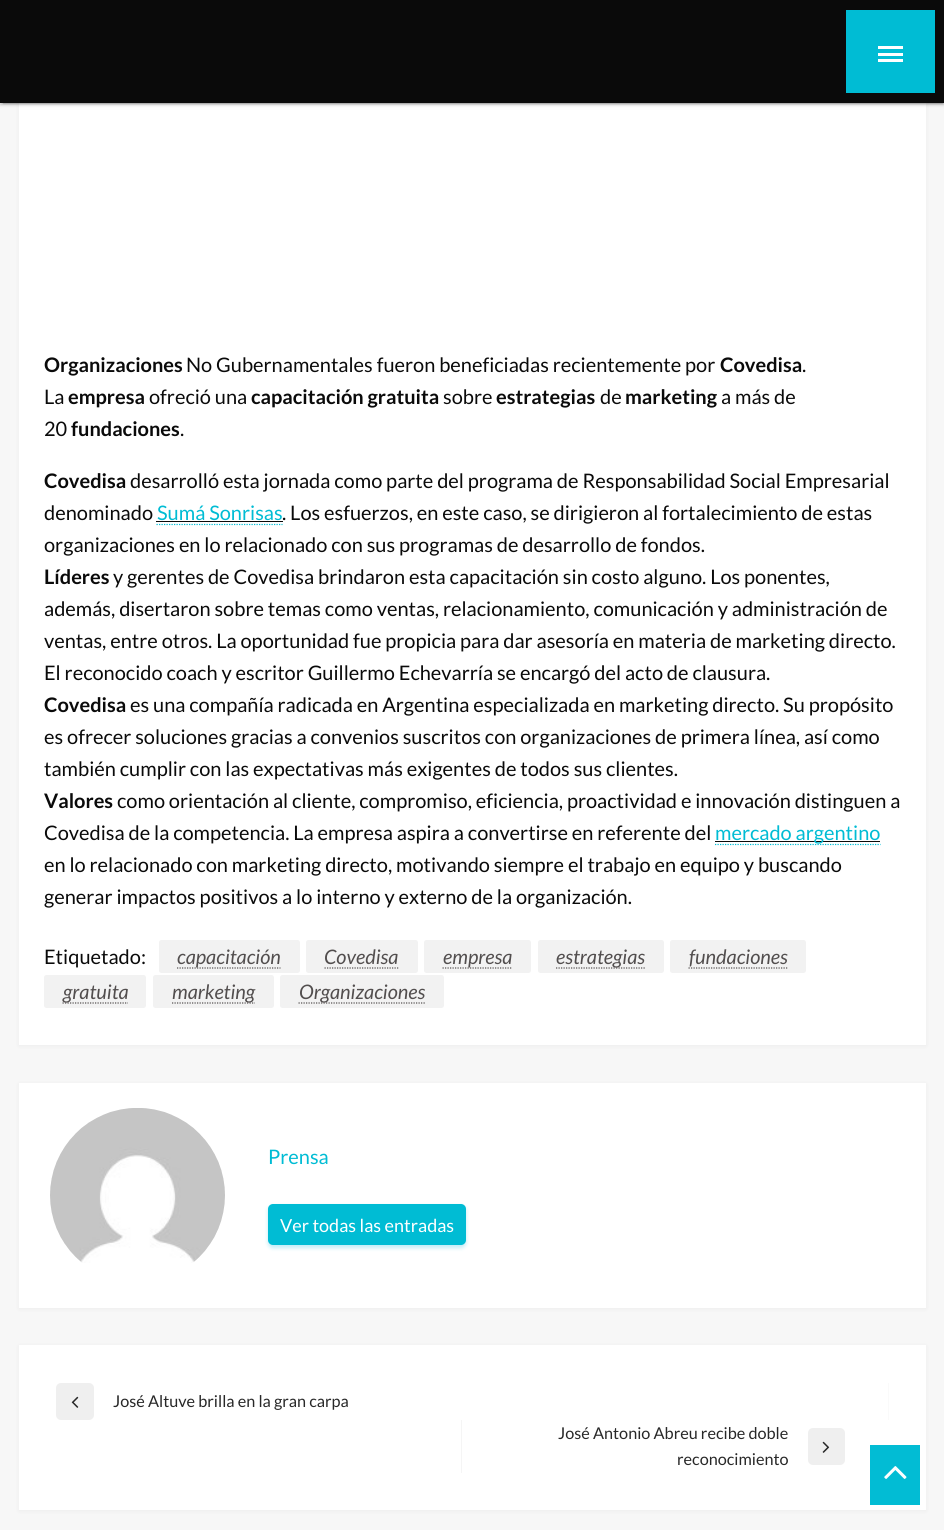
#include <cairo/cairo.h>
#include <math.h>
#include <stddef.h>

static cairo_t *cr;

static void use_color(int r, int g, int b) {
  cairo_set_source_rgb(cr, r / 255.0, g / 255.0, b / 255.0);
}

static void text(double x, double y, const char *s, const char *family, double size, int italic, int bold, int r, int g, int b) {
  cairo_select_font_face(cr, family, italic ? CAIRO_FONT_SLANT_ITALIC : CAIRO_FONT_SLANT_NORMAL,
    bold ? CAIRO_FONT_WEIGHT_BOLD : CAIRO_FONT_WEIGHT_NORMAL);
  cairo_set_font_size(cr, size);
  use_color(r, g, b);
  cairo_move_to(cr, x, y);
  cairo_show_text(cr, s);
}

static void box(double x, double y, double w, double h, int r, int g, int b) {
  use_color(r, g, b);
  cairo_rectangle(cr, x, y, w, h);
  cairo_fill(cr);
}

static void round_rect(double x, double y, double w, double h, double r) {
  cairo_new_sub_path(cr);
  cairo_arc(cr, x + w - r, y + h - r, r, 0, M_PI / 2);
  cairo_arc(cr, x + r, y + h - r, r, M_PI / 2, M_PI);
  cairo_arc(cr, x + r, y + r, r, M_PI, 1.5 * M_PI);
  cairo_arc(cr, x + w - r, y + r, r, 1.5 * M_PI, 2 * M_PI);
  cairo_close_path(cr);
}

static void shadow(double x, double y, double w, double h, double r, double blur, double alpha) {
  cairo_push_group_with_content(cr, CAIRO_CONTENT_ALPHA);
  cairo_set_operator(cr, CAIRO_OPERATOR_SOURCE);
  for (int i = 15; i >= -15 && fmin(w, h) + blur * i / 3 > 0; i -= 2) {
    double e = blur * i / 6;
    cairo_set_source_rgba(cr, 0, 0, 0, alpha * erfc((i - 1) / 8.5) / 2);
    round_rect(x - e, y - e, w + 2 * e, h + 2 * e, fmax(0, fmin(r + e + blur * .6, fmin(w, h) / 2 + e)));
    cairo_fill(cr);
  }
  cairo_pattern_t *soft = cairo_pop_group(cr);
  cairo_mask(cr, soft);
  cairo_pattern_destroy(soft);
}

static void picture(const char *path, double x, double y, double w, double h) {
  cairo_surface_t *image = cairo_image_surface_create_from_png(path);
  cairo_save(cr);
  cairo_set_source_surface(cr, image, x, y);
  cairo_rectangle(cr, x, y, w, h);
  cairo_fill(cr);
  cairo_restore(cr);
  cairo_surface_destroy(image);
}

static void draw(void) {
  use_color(247, 247, 247);
  cairo_paint(cr);
  use_color(28, 28, 28);
  shadow(19, -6, 907, 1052, 0, 2, 0.05);
  box(19, 103, 907, 942, 255, 255, 255);
  use_color(0, 0, 0);
  shadow(0, 1, 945, 103, 0, 3, 0.12);
  shadow(3, 6, 940, 98, 0, 0.5, 0.2);
  shadow(0, 3, 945, 102, 0, 1, 0.14);
  box(0, 0, 944, 103, 10, 10, 10);
  box(846, 10, 89, 83, 0, 188, 212);
  box(878, 46, 25, 3, 255, 255, 255);
  box(878, 53, 25, 3, 255, 255, 255);
  box(878, 59, 25, 3, 255, 255, 255);
  cairo_new_path(cr);
  cairo_move_to(cr, 156.5, 524.5);
  cairo_line_to(cr, 282.5, 524.5);
  use_color(0, 188, 212);
  cairo_set_line_width(cr, 1.2);
  cairo_set_dash(cr, (double[]){1.25, 1.25}, 2, 0);
  cairo_stroke(cr);
  box(156, 521, 127, 1, 10, 10, 10);
  cairo_new_path(cr);
  cairo_move_to(cr, 715, 844.5);
  cairo_line_to(cr, 880.5, 844.5);
  use_color(0, 188, 212);
  cairo_stroke(cr);
  box(715, 841, 165, 1, 10, 10, 10);
  use_color(242, 242, 242);
  round_rect(159, 940, 141, 33, 2.5);
  cairo_fill(cr);
  cairo_new_path(cr);
  cairo_move_to(cr, 177, 968);
  cairo_line_to(cr, 280.5, 968);
  use_color(82, 78, 78);
  cairo_stroke(cr);
  use_color(242, 242, 242);
  round_rect(306, 940, 112, 33, 2.5);
  cairo_fill(cr);
  cairo_new_path(cr);
  cairo_move_to(cr, 324.5, 968);
  cairo_line_to(cr, 399, 968);
  use_color(82, 78, 78);
  cairo_stroke(cr);
  use_color(242, 242, 242);
  round_rect(424, 940, 107, 33, 2.5);
  cairo_fill(cr);
  cairo_new_path(cr);
  cairo_move_to(cr, 442.5, 968);
  cairo_line_to(cr, 512, 968);
  use_color(82, 78, 78);
  cairo_stroke(cr);
  use_color(242, 242, 242);
  round_rect(538, 940, 126, 33, 2.5);
  cairo_fill(cr);
  cairo_new_path(cr);
  cairo_move_to(cr, 556, 968);
  cairo_line_to(cr, 645, 968);
  use_color(82, 78, 78);
  cairo_stroke(cr);
  use_color(242, 242, 242);
  round_rect(670, 940, 136, 33, 2.5);
  cairo_fill(cr);
  cairo_new_path(cr);
  cairo_move_to(cr, 688.5, 968);
  cairo_line_to(cr, 787.5, 968);
  use_color(82, 78, 78);
  cairo_stroke(cr);
  use_color(242, 242, 242);
  round_rect(44, 975, 102, 33, 2.5);
  cairo_fill(cr);
  cairo_new_path(cr);
  cairo_move_to(cr, 62.5, 1003);
  cairo_line_to(cr, 128, 1003);
  use_color(82, 78, 78);
  cairo_stroke(cr);
  use_color(242, 242, 242);
  round_rect(153, 975, 121, 33, 2.5);
  cairo_fill(cr);
  cairo_new_path(cr);
  cairo_move_to(cr, 172, 1003);
  cairo_line_to(cr, 255, 1003);
  use_color(82, 78, 78);
  cairo_stroke(cr);
  use_color(242, 242, 242);
  round_rect(280, 975, 164, 33, 2.5);
  cairo_fill(cr);
  cairo_new_path(cr);
  cairo_move_to(cr, 298.5, 1003);
  cairo_line_to(cr, 425, 1003);
  use_color(82, 78, 78);
  cairo_stroke(cr);
  use_color(28, 28, 28);
  shadow(19, 1084, 907, 225, 0, 2, 0.05);
  box(19, 1083, 907, 225, 255, 255, 255);
  picture("img_01.png", 50, 1108, 175, 155);
  use_color(47, 194, 227);
  shadow(268, 1206, 198, 42, 5, 2, 0.3);
  use_color(0, 188, 212);
  round_rect(268, 1204, 198, 41, 5);
  cairo_fill(cr);
  use_color(28, 28, 28);
  shadow(19, 1346, 907, 165, 0, 2, 0.05);
  box(19, 1345, 907, 165, 255, 255, 255);
  box(888, 1383, 1, 37, 250, 250, 250);
  use_color(239, 239, 239);
  round_rect(56, 1383, 38, 37, 5);
  cairo_fill(cr);
  picture("img_02.png", 71, 1396, 8, 12);
  box(461, 1420, 1, 53, 245, 245, 245);
  use_color(239, 239, 239);
  round_rect(808, 1428, 37, 37, 5);
  cairo_fill(cr);
  picture("img_03.png", 822, 1441, 8, 12);
  box(870, 1445, 50, 60, 2, 188, 212);
  picture("img_04.png", 884, 1466, 23, 13);
  text(44, 372, "Organizaciones", "Lato", 20, 0, 1, 10, 10, 10);
  text(186, 372, "No Gubernamentales fueron beneficiadas recientemente por", "Lato", 20, 0, 0, 10, 10, 10);
  text(720, 372, "Covedisa", "Lato", 20, 0, 1, 10, 10, 10);
  text(802, 372, ".", "Lato", 20, 0, 0, 10, 10, 10);
  text(44, 404, "La", "Lato", 20, 0, 0, 10, 10, 10);
  text(68, 404, "empresa", "Lato", 20, 0, 1, 10, 10, 10);
  text(149, 404, "ofreció una", "Lato", 20, 0, 0, 10, 10, 10);
  text(251, 404, "capacitación gratuita", "Lato", 20, 0, 1, 10, 10, 10);
  text(443, 404, "sobre", "Lato", 20, 0, 0, 10, 10, 10);
  text(496, 404, "estrategias", "Lato", 20, 0, 1, 10, 10, 10);
  text(600, 404, "de", "Lato", 20, 0, 0, 10, 10, 10);
  text(625, 404, "marketing", "Lato", 20, 0, 1, 10, 10, 10);
  text(721, 404, "a más de", "Lato", 20, 0, 0, 10, 10, 10);
  text(44, 436, "20", "Lato", 20, 0, 0, 10, 10, 10);
  text(71, 436, "fundaciones", "Lato", 20, 0, 1, 10, 10, 10);
  text(180, 436, ".", "Lato", 20, 0, 0, 10, 10, 10);
  text(44, 488, "Covedisa", "Lato", 20, 0, 1, 10, 10, 10);
  text(130, 488, "desarrolló esta jornada como parte del programa de Responsabilidad Social Empresarial", "Lato", 20, 0, 0, 10, 10, 10);
  text(44, 520, "denominado", "Lato", 20, 0, 0, 10, 10, 10);
  text(157, 520, "Sumá Sonrisas", "Lato", 20, 0, 0, 0, 188, 212);
  text(282, 520, ". Los esfuerzos, en este caso, se dirigieron al fortalecimiento de estas", "Lato", 20, 0, 0, 10, 10, 10);
  text(44, 552, "organizaciones en lo relacionado con sus programas de desarrollo de fondos.", "Lato", 20, 0, 0, 10, 10, 10);
  text(44, 584, "Líderes", "Lato", 20, 0, 1, 10, 10, 10);
  text(113, 584, "y gerentes de Covedisa brindaron esta capacitación sin costo alguno. Los ponentes,", "Lato", 20, 0, 0, 10, 10, 10);
  text(44, 616, "además, disertaron sobre temas como ventas, relacionamiento, comunicación y administración de", "Lato", 20, 0, 0, 10, 10, 10);
  text(44, 648, "ventas, entre otros. La oportunidad fue propicia para dar asesoría en materia de marketing directo.", "Lato", 20, 0, 0, 10, 10, 10);
  text(44, 680, "El reconocido coach y escritor Guillermo Echevarría se encargó del acto de clausura.", "Lato", 20, 0, 0, 10, 10, 10);
  text(44, 712, "Covedisa", "Lato", 20, 0, 1, 10, 10, 10);
  text(130, 712, "es una compañía radicada en Argentina especializada en marketing directo. Su propósito", "Lato", 20, 0, 0, 10, 10, 10);
  text(44, 744, "es ofrecer soluciones gracias a convenios suscritos con organizaciones de primera línea, así como", "Lato", 20, 0, 0, 10, 10, 10);
  text(44, 776, "también cumplir con las expectativas más exigentes de todos sus clientes.", "Lato", 20, 0, 0, 10, 10, 10);
  text(44, 808, "Valores", "Lato", 20, 0, 1, 10, 10, 10);
  text(117, 808, "como orientación al cliente, compromiso, eficiencia, proactividad e innovación distinguen a", "Lato", 20, 0, 0, 10, 10, 10);
  text(44, 840, "Covedisa de la competencia. La empresa aspira a convertirse en referente del", "Lato", 20, 0, 0, 10, 10, 10);
  text(715, 840, "mercado argentino", "Lato", 20, 0, 0, 0, 188, 212);
  text(44, 872, "en lo relacionado con marketing directo, motivando siempre el trabajo en equipo y buscando", "Lato", 20, 0, 0, 10, 10, 10);
  text(44, 904, "generar impactos positivos a lo interno y externo de la organización.", "Lato", 20, 0, 0, 10, 10, 10);
  text(44, 964, "Etiquetado:", "Lato", 20, 0, 0, 10, 10, 10);
  text(177, 964, "capacitación", "Lato", 20, 1, 0, 82, 78, 78);
  text(324, 964, "Covedisa", "Lato", 20, 1, 0, 82, 78, 78);
  text(443, 964, "empresa", "Lato", 20, 1, 0, 82, 78, 78);
  text(556, 964, "estrategias", "Lato", 20, 1, 0, 82, 78, 78);
  text(689, 964, "fundaciones", "Lato", 20, 1, 0, 82, 78, 78);
  text(63, 999, "gratuita", "Lato", 20, 1, 0, 82, 78, 78);
  text(172, 999, "marketing", "Lato", 20, 1, 0, 82, 78, 78);
  text(299, 999, "Organizaciones", "Lato", 20, 1, 0, 82, 78, 78);
  text(268, 1164, "Prensa", "Lato", 20, 0, 0, 0, 188, 212);
  text(280, 1232, "Ver todas las entradas", "Lato", 18, 0, 0, 255, 255, 255);
  text(113, 1407, "José Altuve brilla en la gran carpa", "Lato", 16.25, 0, 0, 40, 40, 40);
  text(558, 1439, "José Antonio Abreu recibe doble", "Lato", 16.25, 0, 0, 40, 40, 40);
  text(677, 1465, "reconocimiento", "Lato", 16.25, 0, 0, 40, 40, 40);
}

int main(void) {
  cairo_surface_t *surface = cairo_image_surface_create(CAIRO_FORMAT_RGB24, 944, 1530);
  cr = cairo_create(surface);
  cairo_font_options_t *options = cairo_font_options_create();
  cairo_font_options_set_hint_metrics(options, CAIRO_HINT_METRICS_OFF);
  cairo_font_options_set_hint_style(options, CAIRO_HINT_STYLE_NONE);
  cairo_set_font_options(cr, options);
  cairo_set_miter_limit(cr, 4);
  draw();
  cairo_surface_write_to_png(surface, "out.png");
  cairo_font_options_destroy(options);
  cairo_destroy(cr);
  cairo_surface_destroy(surface);
  return 0;
}
